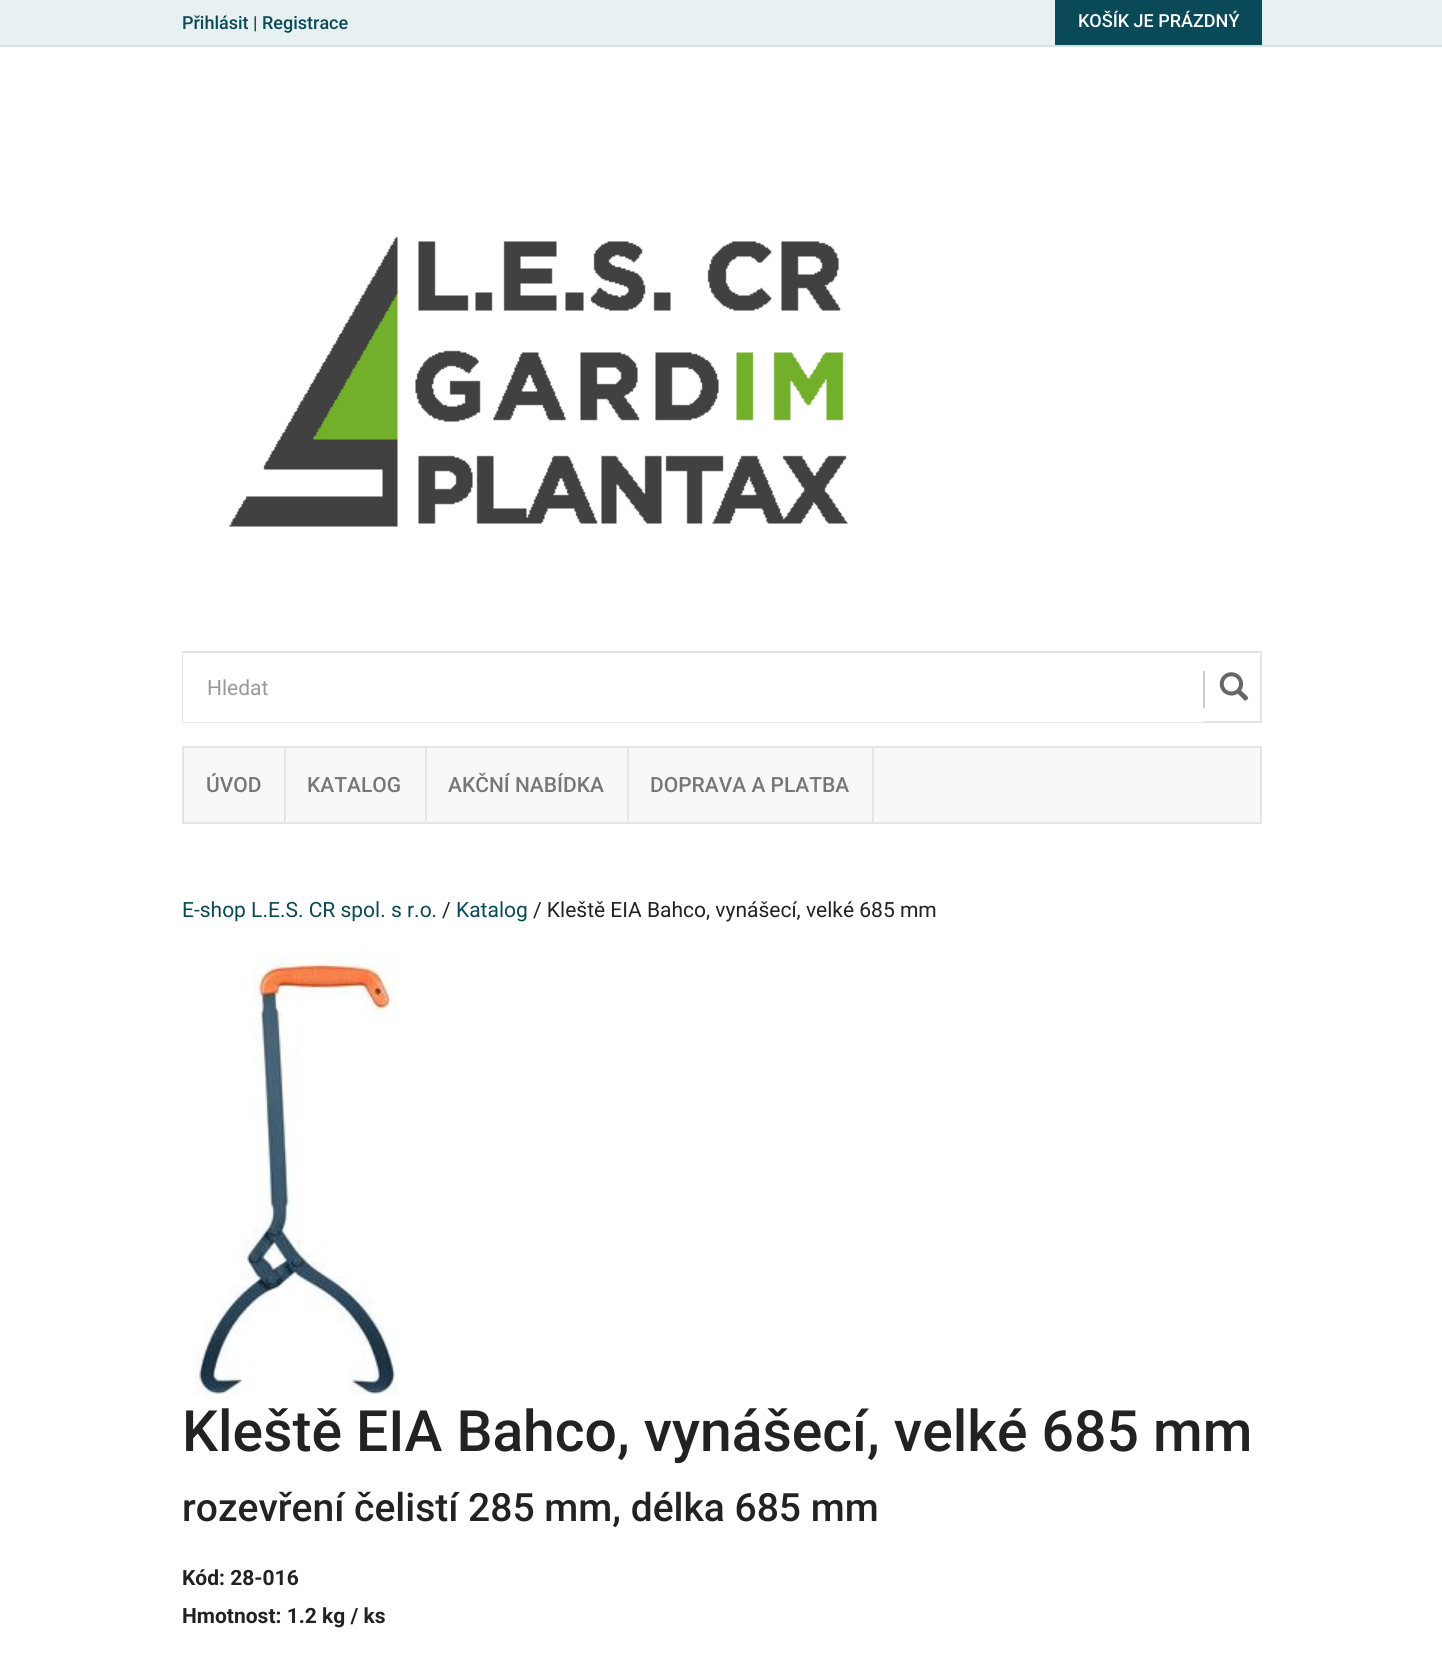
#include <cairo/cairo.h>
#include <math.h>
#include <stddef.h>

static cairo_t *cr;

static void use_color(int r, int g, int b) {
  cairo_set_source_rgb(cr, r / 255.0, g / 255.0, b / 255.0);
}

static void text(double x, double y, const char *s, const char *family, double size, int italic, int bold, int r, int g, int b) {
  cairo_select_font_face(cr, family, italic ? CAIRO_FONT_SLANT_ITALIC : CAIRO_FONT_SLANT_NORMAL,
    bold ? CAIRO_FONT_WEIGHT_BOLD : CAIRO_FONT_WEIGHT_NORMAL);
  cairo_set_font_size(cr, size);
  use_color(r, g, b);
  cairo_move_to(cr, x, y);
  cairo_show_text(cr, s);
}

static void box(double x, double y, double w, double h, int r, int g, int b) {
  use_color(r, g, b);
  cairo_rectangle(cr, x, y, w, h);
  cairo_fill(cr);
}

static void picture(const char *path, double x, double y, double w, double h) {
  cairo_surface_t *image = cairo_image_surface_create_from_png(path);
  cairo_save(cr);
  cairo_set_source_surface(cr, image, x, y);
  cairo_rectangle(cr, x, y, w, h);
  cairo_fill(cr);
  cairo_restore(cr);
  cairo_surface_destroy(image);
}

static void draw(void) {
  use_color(255, 255, 255);
  cairo_paint(cr);
  box(0, 0, 1442, 45, 232, 241, 242);
  box(0, 45, 1442, 2, 213, 226, 228);
  box(1055, 0, 207, 45, 10, 73, 88);
  picture("img_01.png", 229, 236, 619, 291);
  cairo_rectangle(cr, 183, 652, 1078, 70);
  use_color(228, 228, 228);
  cairo_stroke(cr);
  box(183, 653, 1020, 69, 255, 255, 255);
  box(1203, 671, 2, 37, 204, 204, 204);
  picture("img_02.png", 1219, 672, 30, 29);
  use_color(248, 248, 248);
  cairo_rectangle(cr, 183, 747, 1078, 76);
  cairo_fill_preserve(cr);
  use_color(229, 229, 229);
  cairo_stroke(cr);
  box(284, 747, 2, 75, 229, 229, 229);
  box(425, 747, 2, 75, 229, 229, 229);
  box(627, 747, 2, 75, 229, 229, 229);
  box(872, 747, 2, 75, 229, 229, 229);
  picture("img_03.png", 194, 951, 204, 450);
  text(182, 29, "Přihlásit | Registrace", "Roboto Medium", 18, 0, 0, 10, 73, 88);
  text(1078, 27, "KOŠÍK JE PRÁZDNÝ", "Roboto Medium", 18, 0, 0, 255, 255, 255);
  text(207, 695, "Hledat", "Roboto", 21, 0, 0, 153, 153, 153);
  text(206, 792, "ÚVOD", "Roboto Medium", 21, 0, 0, 119, 119, 119);
  text(307, 792, "KATALOG", "Roboto Medium", 21, 0, 0, 119, 119, 119);
  text(448, 792, "AKČNÍ NABÍDKA", "Roboto Medium", 21, 0, 0, 119, 119, 119);
  text(650, 792, "DOPRAVA A PLATBA", "Roboto Medium", 21, 0, 0, 119, 119, 119);
  text(182, 917, "E-shop L.E.S. CR spol. s r.o.", "Roboto", 21, 0, 0, 10, 73, 88);
  text(442, 917, "/", "Roboto", 21, 0, 0, 34, 34, 34);
  text(456, 917, "Katalog", "Roboto", 21, 0, 0, 10, 73, 88);
  text(533, 917, "/ Kleště EIA Bahco, vynášecí, velké 685 mm", "Roboto", 21, 0, 0, 34, 34, 34);
  text(182, 1451, "Kleště EIA Bahco, vynášecí, velké 685 mm", "Roboto Medium", 57, 0, 0, 34, 34, 34);
  text(182, 1521, "rozevření čelistí 285 mm, délka 685 mm", "Roboto Medium", 39, 0, 0, 34, 34, 34);
  text(182, 1585, "Kód: 28-016", "Roboto", 21, 0, 1, 34, 34, 34);
  text(182, 1623, "Hmotnost: 1.2 kg / ks", "Roboto", 21, 0, 1, 34, 34, 34);
}

int main(void) {
  cairo_surface_t *surface = cairo_image_surface_create(CAIRO_FORMAT_RGB24, 1442, 1656);
  cr = cairo_create(surface);
  cairo_font_options_t *options = cairo_font_options_create();
  cairo_font_options_set_hint_metrics(options, CAIRO_HINT_METRICS_OFF);
  cairo_font_options_set_hint_style(options, CAIRO_HINT_STYLE_NONE);
  cairo_set_font_options(cr, options);
  cairo_set_miter_limit(cr, 4);
  draw();
  cairo_surface_write_to_png(surface, "out.png");
  cairo_font_options_destroy(options);
  cairo_destroy(cr);
  cairo_surface_destroy(surface);
  return 0;
}
